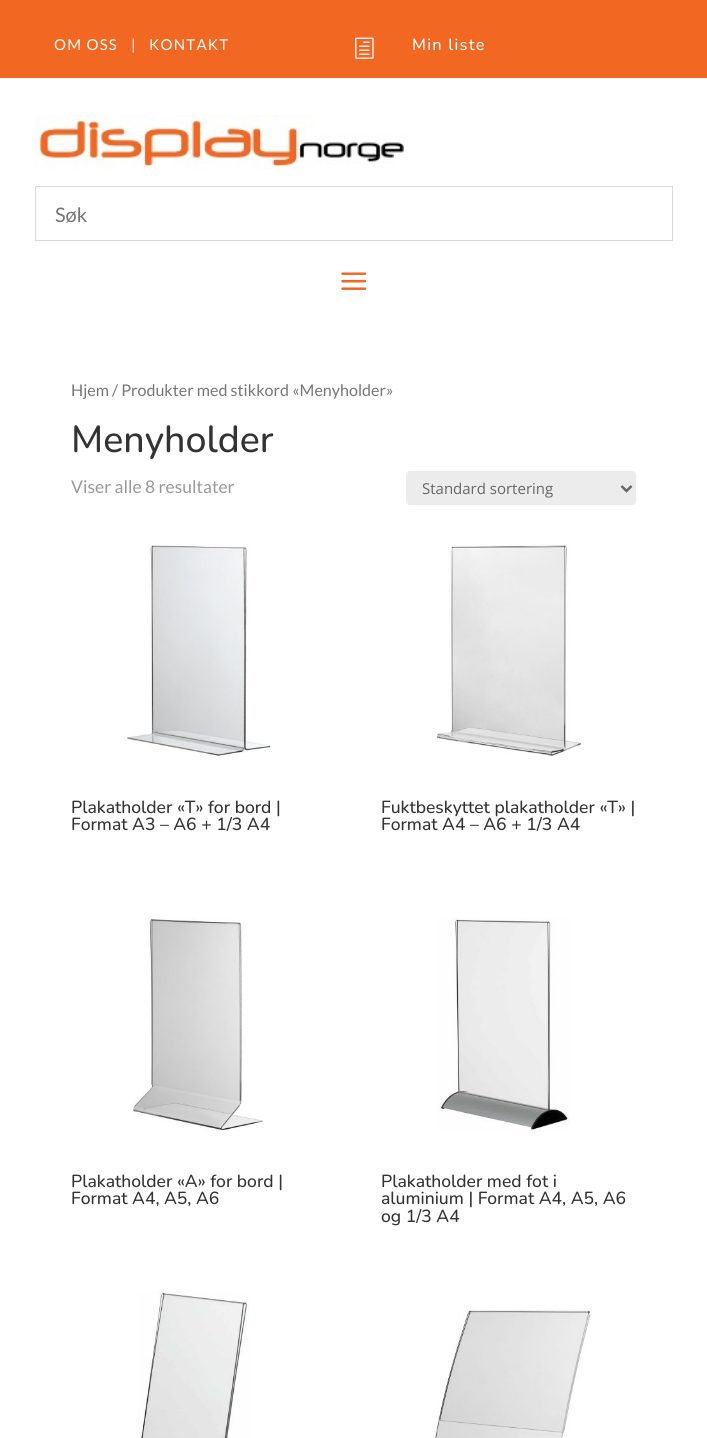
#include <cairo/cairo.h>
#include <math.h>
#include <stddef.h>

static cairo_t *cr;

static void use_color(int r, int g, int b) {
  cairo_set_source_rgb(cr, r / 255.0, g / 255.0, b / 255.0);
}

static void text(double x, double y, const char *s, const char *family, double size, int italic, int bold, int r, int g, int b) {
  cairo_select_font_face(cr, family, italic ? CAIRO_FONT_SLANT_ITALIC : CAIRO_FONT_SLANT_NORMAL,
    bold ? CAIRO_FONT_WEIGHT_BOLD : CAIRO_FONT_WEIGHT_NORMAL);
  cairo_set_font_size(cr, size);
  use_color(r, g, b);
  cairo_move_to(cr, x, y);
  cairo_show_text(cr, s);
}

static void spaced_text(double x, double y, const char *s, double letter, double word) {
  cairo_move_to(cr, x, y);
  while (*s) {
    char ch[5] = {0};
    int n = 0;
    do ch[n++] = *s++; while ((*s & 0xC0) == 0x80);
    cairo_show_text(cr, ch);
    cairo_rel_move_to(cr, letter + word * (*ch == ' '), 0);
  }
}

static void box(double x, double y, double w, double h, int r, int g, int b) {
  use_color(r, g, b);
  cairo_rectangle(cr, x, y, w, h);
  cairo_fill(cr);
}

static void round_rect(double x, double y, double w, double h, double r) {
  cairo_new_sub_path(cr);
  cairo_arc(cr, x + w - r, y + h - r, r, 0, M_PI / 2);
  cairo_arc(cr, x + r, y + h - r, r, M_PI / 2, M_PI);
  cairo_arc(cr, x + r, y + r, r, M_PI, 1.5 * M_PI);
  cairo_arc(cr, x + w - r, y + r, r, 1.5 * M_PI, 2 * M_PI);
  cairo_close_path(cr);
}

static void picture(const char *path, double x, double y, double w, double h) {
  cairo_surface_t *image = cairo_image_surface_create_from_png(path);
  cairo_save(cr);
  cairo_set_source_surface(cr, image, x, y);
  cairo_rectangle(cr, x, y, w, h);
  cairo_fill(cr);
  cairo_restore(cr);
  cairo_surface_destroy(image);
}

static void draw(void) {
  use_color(255, 255, 255);
  cairo_paint(cr);
  box(0, 0, 707, 78, 242, 103, 33);
  picture("img_01.png", 355, 37, 19, 22);
  picture("img_02.png", 35, 115, 370, 54);
  cairo_rectangle(cr, 35.5, 186.5, 637, 54);
  use_color(216, 216, 216);
  cairo_set_line_width(cr, 1);
  cairo_stroke(cr);
  picture("img_03.png", 341, 272, 26, 18);
  use_color(236, 236, 236);
  round_rect(406, 471, 230, 34, 4);
  cairo_fill(cr);
  cairo_new_path(cr);
  cairo_move_to(cr, 621.5, 486);
  cairo_line_to(cr, 626.5, 491);
  cairo_line_to(cr, 631.5, 486);
  use_color(102, 102, 102);
  cairo_set_line_width(cr, 2.5);
  cairo_stroke(cr);
  picture("img_04.png", 127, 544, 145, 214);
  picture("img_05.png", 436, 544, 147, 214);
  picture("img_06.png", 133, 918, 130, 213);
  picture("img_07.png", 437, 918, 133, 214);
  picture("img_08.png", 138, 1291, 112, 147);
  picture("img_09.png", 434, 1308, 157, 130);
  cairo_select_font_face(cr, "Lato", CAIRO_FONT_SLANT_NORMAL, CAIRO_FONT_WEIGHT_NORMAL);
  cairo_set_font_size(cr, 15);
  use_color(255, 255, 255);
  spaced_text(54, 50, "OM OSS", 1.25, 0);
  spaced_text(131, 50, "|", 1.25, 0);
  spaced_text(149, 50, "KONTAKT", 1.25, 0);
  cairo_select_font_face(cr, "Nunito Medium", CAIRO_FONT_SLANT_NORMAL, CAIRO_FONT_WEIGHT_NORMAL);
  cairo_set_font_size(cr, 16.25);
  spaced_text(412, 50, "Min liste", 1.25, 0);
  text(55, 222, "Søk", "Lato", 20, 0, 0, 118, 118, 118);
  text(71, 396, "Hjem / Produkter med stikkord «Menyholder»", "Lato", 16.1, 0, 0, 118, 118, 118);
  text(71, 452, "Menyholder", "Nunito Medium", 37.5, 0, 0, 51, 51, 51);
  text(71, 493, "Viser alle 8 resultater", "Lato", 17.5, 0, 0, 153, 153, 153);
  text(422, 494, "Standard sortering", "Open Sans", 15, 0, 0, 102, 102, 102);
  text(71, 813, "Plakatholder «T» for bord |", "Nunito Medium", 17.5, 0, 0, 51, 51, 51);
  text(71, 830, "Format A3 – A6 + 1/3 A4", "Nunito Medium", 17.5, 0, 0, 51, 51, 51);
  text(381, 813, "Fuktbeskyttet plakatholder «T» |", "Nunito Medium", 17.5, 0, 0, 51, 51, 51);
  text(381, 830, "Format A4 – A6 + 1/3 A4", "Nunito Medium", 17.5, 0, 0, 51, 51, 51);
  text(71, 1187, "Plakatholder «A» for bord |", "Nunito Medium", 17.5, 0, 0, 51, 51, 51);
  text(71, 1204, "Format A4, A5, A6", "Nunito Medium", 17.5, 0, 0, 51, 51, 51);
  text(381, 1187, "Plakatholder med fot i", "Nunito Medium", 17.5, 0, 0, 51, 51, 51);
  text(381, 1204, "aluminium | Format A4, A5, A6", "Nunito Medium", 17.5, 0, 0, 51, 51, 51);
  text(381, 1222, "og 1/3 A4", "Nunito Medium", 17.5, 0, 0, 51, 51, 51);
}

int main(void) {
  cairo_surface_t *surface = cairo_image_surface_create(CAIRO_FORMAT_RGB24, 707, 1438);
  cr = cairo_create(surface);
  cairo_font_options_t *options = cairo_font_options_create();
  cairo_font_options_set_hint_metrics(options, CAIRO_HINT_METRICS_OFF);
  cairo_font_options_set_hint_style(options, CAIRO_HINT_STYLE_NONE);
  cairo_set_font_options(cr, options);
  cairo_set_miter_limit(cr, 4);
  draw();
  cairo_surface_write_to_png(surface, "out.png");
  cairo_font_options_destroy(options);
  cairo_destroy(cr);
  cairo_surface_destroy(surface);
  return 0;
}
